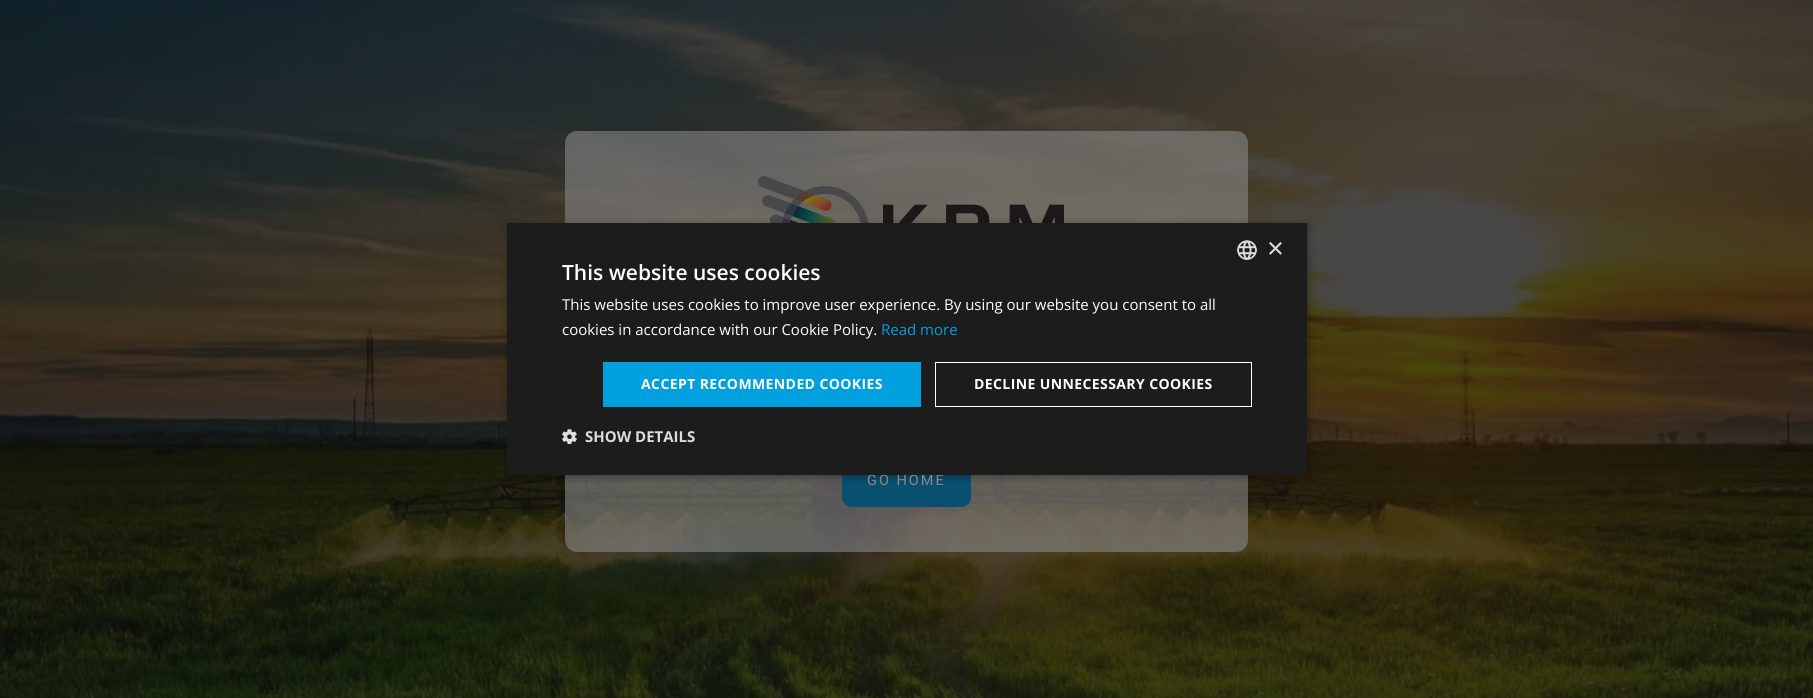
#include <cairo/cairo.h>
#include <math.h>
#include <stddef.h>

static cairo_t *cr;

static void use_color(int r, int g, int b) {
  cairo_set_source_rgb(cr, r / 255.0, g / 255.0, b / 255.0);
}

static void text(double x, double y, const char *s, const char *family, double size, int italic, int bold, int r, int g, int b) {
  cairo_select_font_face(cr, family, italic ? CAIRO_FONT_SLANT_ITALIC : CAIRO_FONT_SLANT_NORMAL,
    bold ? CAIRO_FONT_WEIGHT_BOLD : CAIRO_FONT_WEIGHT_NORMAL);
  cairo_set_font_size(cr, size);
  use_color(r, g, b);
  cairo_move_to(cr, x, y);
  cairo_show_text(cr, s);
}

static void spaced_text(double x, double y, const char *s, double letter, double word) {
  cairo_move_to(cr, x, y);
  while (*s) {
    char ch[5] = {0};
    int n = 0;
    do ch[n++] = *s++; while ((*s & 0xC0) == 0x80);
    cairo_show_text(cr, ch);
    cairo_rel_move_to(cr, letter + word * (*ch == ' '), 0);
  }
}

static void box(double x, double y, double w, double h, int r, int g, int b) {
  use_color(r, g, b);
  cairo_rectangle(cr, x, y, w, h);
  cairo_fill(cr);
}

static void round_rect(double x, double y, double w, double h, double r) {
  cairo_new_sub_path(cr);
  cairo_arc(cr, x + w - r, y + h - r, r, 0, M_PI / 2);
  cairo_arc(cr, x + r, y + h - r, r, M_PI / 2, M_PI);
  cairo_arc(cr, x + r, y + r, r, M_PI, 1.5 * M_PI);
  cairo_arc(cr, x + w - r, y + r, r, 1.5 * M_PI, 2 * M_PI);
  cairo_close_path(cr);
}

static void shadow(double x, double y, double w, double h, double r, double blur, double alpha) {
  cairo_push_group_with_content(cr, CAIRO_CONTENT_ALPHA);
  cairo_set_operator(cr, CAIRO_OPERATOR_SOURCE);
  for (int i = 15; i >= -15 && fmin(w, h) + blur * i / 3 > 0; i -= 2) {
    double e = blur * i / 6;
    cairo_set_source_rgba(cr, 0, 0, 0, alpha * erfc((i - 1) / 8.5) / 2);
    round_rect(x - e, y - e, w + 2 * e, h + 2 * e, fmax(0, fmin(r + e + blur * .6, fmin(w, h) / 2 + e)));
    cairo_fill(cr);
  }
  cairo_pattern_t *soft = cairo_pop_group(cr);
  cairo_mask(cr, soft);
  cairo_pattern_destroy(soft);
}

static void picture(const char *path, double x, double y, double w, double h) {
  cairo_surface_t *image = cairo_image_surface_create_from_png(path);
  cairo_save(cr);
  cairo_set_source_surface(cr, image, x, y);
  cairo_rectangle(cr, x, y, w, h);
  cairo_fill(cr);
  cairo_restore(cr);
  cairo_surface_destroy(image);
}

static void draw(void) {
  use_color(255, 255, 255);
  cairo_paint(cr);
  picture("img_03.png", 0, 0, 1813, 698);
  cairo_set_source_rgba(cr, 0.533, 0.533, 0.533, 0.6);
  round_rect(565, 131, 683, 421, 12);
  cairo_fill(cr);
  picture("img_04.png", 758, 176, 306, 47);
  use_color(9, 79, 111);
  round_rect(842, 455, 129, 52, 10);
  cairo_fill(cr);
  use_color(0, 0, 0);
  shadow(508, 225, 800, 252, 0, 4, 0.35);
  cairo_select_font_face(cr, "Roboto", CAIRO_FONT_SLANT_NORMAL, CAIRO_FONT_WEIGHT_NORMAL);
  cairo_set_font_size(cr, 14.5);
  use_color(136, 136, 136);
  spaced_text(867, 485, "GO HOME", 2, 0);
  box(507, 223, 800, 252, 28, 28, 28);
  text(1267, 258, "×", "Liberation Sans", 29, 0, 0, 221, 221, 221);
  text(562, 280, "This website uses cookies", "Open Sans SemiBold", 21, 0, 0, 255, 255, 255);
  picture("img_02.png", 562, 429, 15, 15);
  text(585, 442, "SHOW DETAILS", "Open Sans", 15, 0, 1, 221, 221, 221);
  picture("img_01.png", 1237, 240, 20, 20);
  cairo_rectangle(cr, 935.5, 362.5, 316, 44);
  use_color(255, 255, 255);
  cairo_set_line_width(cr, 1);
  cairo_stroke(cr);
  cairo_set_font_size(cr, 14);
  spaced_text(974, 389, "DECLINE UNNECESSARY COOKIES", 0.4, 0);
  box(603, 362, 318, 45, 0, 160, 223);
  use_color(255, 255, 255);
  spaced_text(641, 389, "ACCEPT RECOMMENDED COOKIES", 0.4, 0);
  text(881, 335, "Read more", "Open Sans", 15, 0, 0, 0, 160, 223);
  text(562, 335, "cookies in accordance with our Cookie Policy.", "Open Sans", 15, 0, 0, 255, 255, 255);
  text(562, 310, "This website uses cookies to improve user experience. By using our website you consent to all", "Open Sans", 15, 0, 0, 255, 255, 255);
}

int main(void) {
  cairo_surface_t *surface = cairo_image_surface_create(CAIRO_FORMAT_RGB24, 1813, 698);
  cr = cairo_create(surface);
  cairo_font_options_t *options = cairo_font_options_create();
  cairo_font_options_set_hint_metrics(options, CAIRO_HINT_METRICS_OFF);
  cairo_font_options_set_hint_style(options, CAIRO_HINT_STYLE_NONE);
  cairo_set_font_options(cr, options);
  cairo_set_miter_limit(cr, 4);
  draw();
  cairo_surface_write_to_png(surface, "out.png");
  cairo_font_options_destroy(options);
  cairo_destroy(cr);
  cairo_surface_destroy(surface);
  return 0;
}
